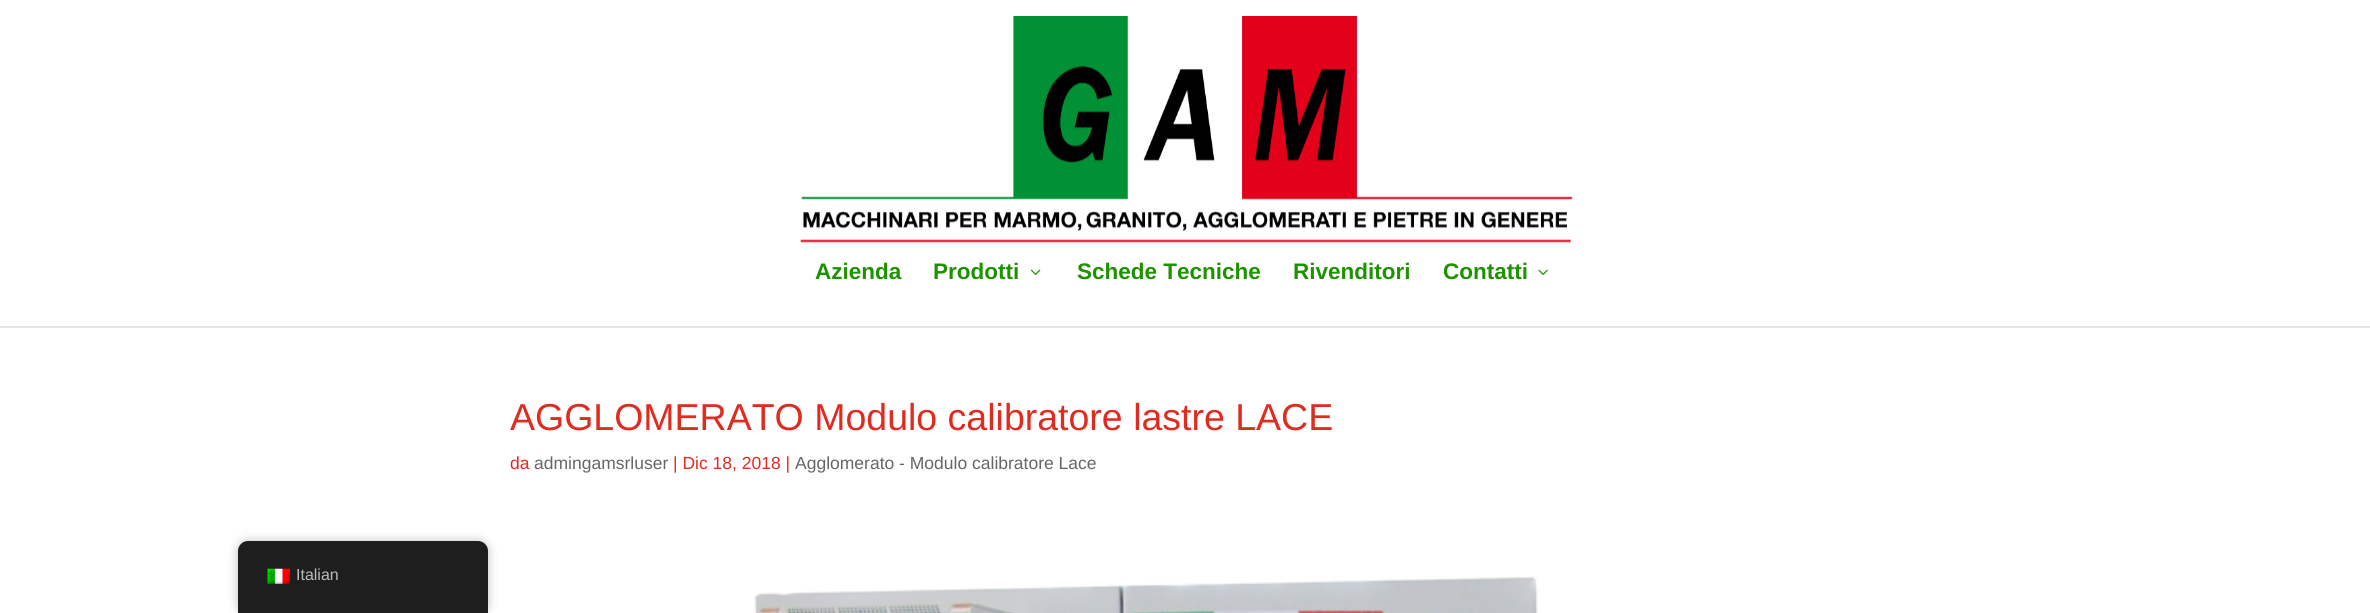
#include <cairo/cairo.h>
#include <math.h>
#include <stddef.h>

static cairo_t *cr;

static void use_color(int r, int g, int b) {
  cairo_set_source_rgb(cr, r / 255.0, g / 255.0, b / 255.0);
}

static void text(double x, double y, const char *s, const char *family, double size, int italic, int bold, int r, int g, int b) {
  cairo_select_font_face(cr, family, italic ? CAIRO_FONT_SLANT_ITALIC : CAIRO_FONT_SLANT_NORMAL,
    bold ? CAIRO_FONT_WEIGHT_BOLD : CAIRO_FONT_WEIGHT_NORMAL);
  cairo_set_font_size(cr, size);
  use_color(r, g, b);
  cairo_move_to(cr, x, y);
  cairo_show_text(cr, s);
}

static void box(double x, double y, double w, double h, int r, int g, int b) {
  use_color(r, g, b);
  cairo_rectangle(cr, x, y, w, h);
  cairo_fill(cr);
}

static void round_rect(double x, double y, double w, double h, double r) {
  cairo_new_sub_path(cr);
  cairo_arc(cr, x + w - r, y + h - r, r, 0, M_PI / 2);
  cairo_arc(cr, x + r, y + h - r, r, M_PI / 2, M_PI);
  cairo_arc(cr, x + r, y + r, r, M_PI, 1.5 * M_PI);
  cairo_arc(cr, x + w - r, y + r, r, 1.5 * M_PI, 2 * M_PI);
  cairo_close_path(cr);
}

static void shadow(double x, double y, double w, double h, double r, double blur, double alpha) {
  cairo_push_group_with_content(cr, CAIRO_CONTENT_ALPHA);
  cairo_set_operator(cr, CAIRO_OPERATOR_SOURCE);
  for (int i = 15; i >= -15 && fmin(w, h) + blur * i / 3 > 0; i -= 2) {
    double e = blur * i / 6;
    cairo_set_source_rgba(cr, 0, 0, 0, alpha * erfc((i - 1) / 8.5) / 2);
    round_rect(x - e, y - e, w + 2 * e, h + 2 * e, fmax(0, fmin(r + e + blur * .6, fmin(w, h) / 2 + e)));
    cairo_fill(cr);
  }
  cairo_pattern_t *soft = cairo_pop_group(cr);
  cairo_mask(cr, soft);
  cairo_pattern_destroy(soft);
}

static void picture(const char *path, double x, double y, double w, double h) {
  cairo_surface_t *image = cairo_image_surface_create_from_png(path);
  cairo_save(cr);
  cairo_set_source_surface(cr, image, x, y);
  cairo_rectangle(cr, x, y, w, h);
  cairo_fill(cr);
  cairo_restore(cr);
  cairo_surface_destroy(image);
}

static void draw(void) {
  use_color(255, 255, 255);
  cairo_paint(cr);
  box(0, 326, 2370, 2, 230, 230, 230);
  picture("img_01.png", 800, 16, 773, 227);
  picture("img_02.png", 1031, 269, 10, 6);
  picture("img_03.png", 1538, 269, 10, 6);
  picture("img_04.png", 754, 576, 784, 37);
  use_color(0, 0, 0);
  shadow(238, 541, 250, 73, 10, 5, 0.25);
  use_color(30, 30, 30);
  cairo_new_path(cr);
  cairo_move_to(cr, 248, 541);
  cairo_line_to(cr, 478, 541);
  cairo_curve_to(cr, 483.5, 541, 488, 545.5, 488, 551);
  cairo_line_to(cr, 488, 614);
  cairo_line_to(cr, 238, 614);
  cairo_line_to(cr, 238, 551);
  cairo_curve_to(cr, 238, 545.5, 242.5, 541, 248, 541);
  cairo_close_path(cr);
  cairo_fill(cr);
  picture("img_05.png", 267, 568, 23, 16);
  text(815, 279, "Azienda", "Liberation Sans", 22.5, 0, 1, 29, 147, 0);
  text(933, 279, "Prodotti", "Liberation Sans", 22.5, 0, 1, 29, 147, 0);
  text(1077, 279, "Schede Tecniche", "Liberation Sans", 22.5, 0, 1, 29, 147, 0);
  text(1293, 279, "Rivenditori", "Liberation Sans", 22.5, 0, 1, 29, 147, 0);
  text(1443, 279, "Contatti", "Liberation Sans", 22.5, 0, 1, 29, 147, 0);
  text(510, 430, "AGGLOMERATO Modulo calibratore lastre LACE", "Liberation Sans", 37.5, 0, 0, 224, 43, 32);
  text(510, 469, "da", "Liberation Sans", 17.5, 0, 0, 224, 43, 32);
  text(534, 469, "admingamsrluser", "Liberation Sans", 17.5, 0, 0, 102, 102, 102);
  text(673, 469, "| Dic 18, 2018 |", "Liberation Sans", 17.5, 0, 0, 224, 43, 32);
  text(795, 469, "Agglomerato - Modulo calibratore Lace", "Liberation Sans", 17.5, 0, 0, 102, 102, 102);
  text(296, 580, "Italian", "Liberation Sans", 16, 0, 0, 189, 189, 189);
}

int main(void) {
  cairo_surface_t *surface = cairo_image_surface_create(CAIRO_FORMAT_RGB24, 2370, 613);
  cr = cairo_create(surface);
  cairo_font_options_t *options = cairo_font_options_create();
  cairo_font_options_set_hint_metrics(options, CAIRO_HINT_METRICS_OFF);
  cairo_font_options_set_hint_style(options, CAIRO_HINT_STYLE_NONE);
  cairo_set_font_options(cr, options);
  cairo_set_miter_limit(cr, 4);
  draw();
  cairo_surface_write_to_png(surface, "out.png");
  cairo_font_options_destroy(options);
  cairo_destroy(cr);
  cairo_surface_destroy(surface);
  return 0;
}
